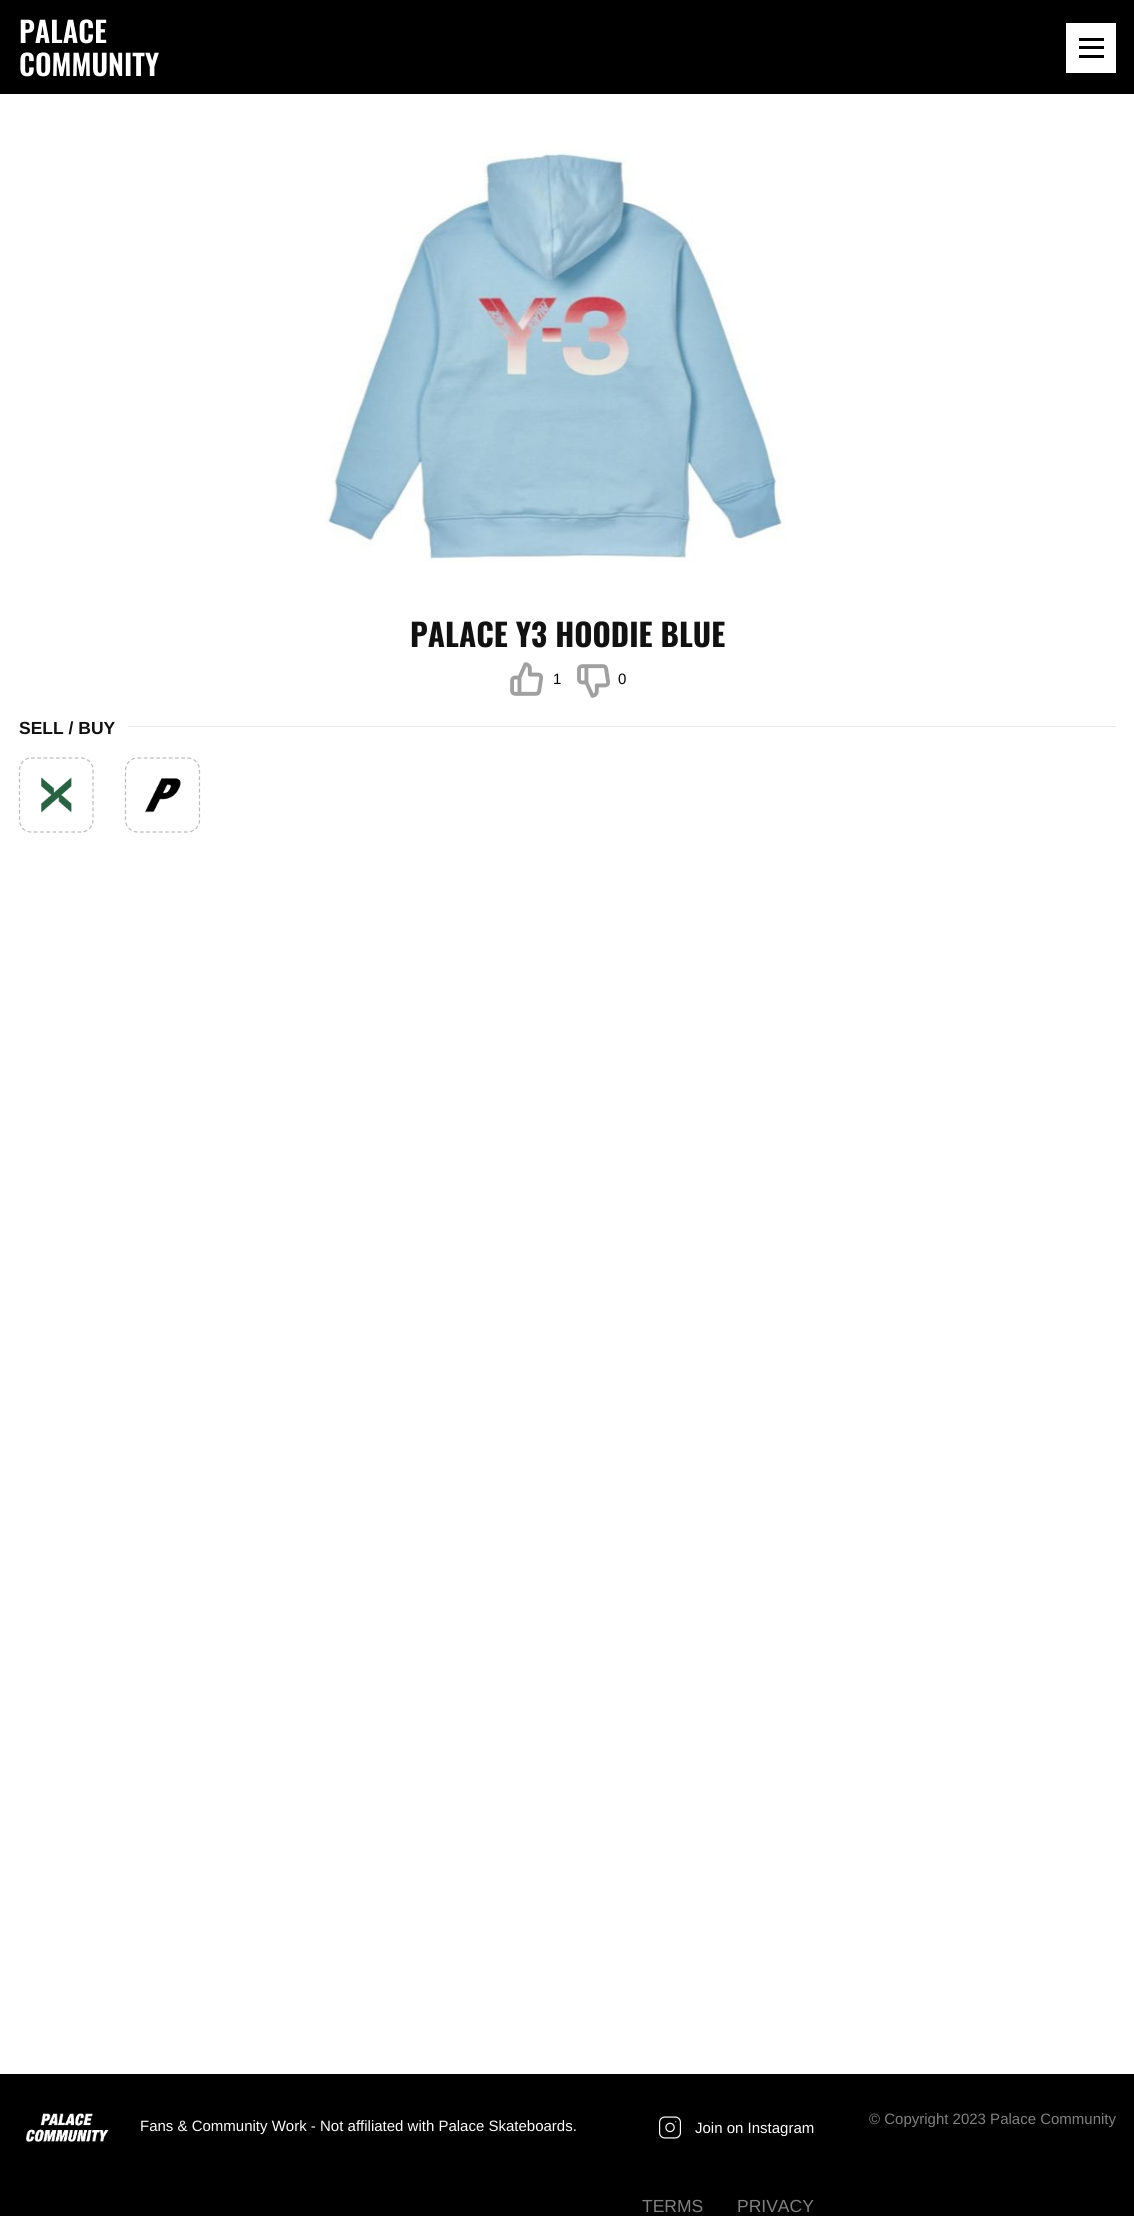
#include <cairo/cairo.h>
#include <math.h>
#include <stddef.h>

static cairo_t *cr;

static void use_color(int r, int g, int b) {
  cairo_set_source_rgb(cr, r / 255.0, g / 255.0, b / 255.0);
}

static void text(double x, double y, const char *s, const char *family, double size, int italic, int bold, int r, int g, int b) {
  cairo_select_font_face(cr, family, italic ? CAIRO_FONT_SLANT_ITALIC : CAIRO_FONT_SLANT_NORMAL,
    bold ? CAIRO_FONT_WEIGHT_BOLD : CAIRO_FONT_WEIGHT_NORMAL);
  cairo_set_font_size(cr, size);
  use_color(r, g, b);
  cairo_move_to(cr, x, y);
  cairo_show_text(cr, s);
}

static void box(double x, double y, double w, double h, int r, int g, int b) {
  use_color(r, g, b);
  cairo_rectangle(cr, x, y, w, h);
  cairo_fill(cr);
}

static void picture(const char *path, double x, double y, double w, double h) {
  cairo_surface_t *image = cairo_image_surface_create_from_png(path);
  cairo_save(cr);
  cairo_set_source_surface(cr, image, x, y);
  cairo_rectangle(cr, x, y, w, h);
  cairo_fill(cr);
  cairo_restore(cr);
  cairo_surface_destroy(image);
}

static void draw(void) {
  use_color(255, 255, 255);
  cairo_paint(cr);
  box(0, 0, 1134, 94, 0, 0, 0);
  box(1066, 23, 50, 50, 255, 255, 255);
  box(1079, 38, 25, 3, 0, 0, 0);
  box(1079, 46, 25, 3, 0, 0, 0);
  box(1079, 55, 25, 3, 0, 0, 0);
  picture("img_01.png", 324, 149, 462, 413);
  picture("img_02.png", 510, 662, 34, 34);
  picture("img_03.png", 577, 664, 33, 34);
  box(128, 726, 988, 1, 232, 232, 232);
  cairo_new_path(cr);
  cairo_move_to(cr, 31, 758);
  cairo_line_to(cr, 81, 758);
  cairo_curve_to(cr, 88, 758, 93, 763.5, 93, 770);
  cairo_line_to(cr, 93, 820);
  cairo_curve_to(cr, 93, 826.5, 88, 832, 81, 832);
  cairo_line_to(cr, 31, 832);
  cairo_curve_to(cr, 24.5, 832, 19.5, 826.5, 19.5, 820);
  cairo_line_to(cr, 19.5, 770);
  cairo_curve_to(cr, 19.5, 763.5, 24.5, 758, 31, 758);
  cairo_close_path(cr);
  use_color(187, 187, 187);
  cairo_set_line_width(cr, 1.2);
  cairo_set_dash(cr, (double[]){3.75, 2.5}, 2, 0);
  cairo_stroke(cr);
  picture("img_04.png", 41, 777, 31, 36);
  cairo_new_path(cr);
  cairo_move_to(cr, 137.5, 758);
  cairo_line_to(cr, 187.5, 758);
  cairo_curve_to(cr, 194, 758, 199.5, 763.5, 199.5, 770);
  cairo_line_to(cr, 199.5, 820);
  cairo_curve_to(cr, 199.5, 826.5, 194, 832, 187.5, 832);
  cairo_line_to(cr, 137.5, 832);
  cairo_curve_to(cr, 131, 832, 125.5, 826.5, 125.5, 820);
  cairo_line_to(cr, 125.5, 770);
  cairo_curve_to(cr, 125.5, 763.5, 131, 758, 137.5, 758);
  cairo_close_path(cr);
  cairo_stroke(cr);
  picture("img_05.png", 145, 778, 36, 35);
  box(0, 2074, 1134, 142, 0, 0, 0);
  picture("img_06.png", 26, 2113, 83, 29);
  picture("img_07.png", 659, 2116, 22, 23);
  text(19, 43, "PALACE", "Oswald SemiBold", 28.75, 0, 0, 255, 255, 255);
  text(19, 76, "COMMUNITY", "Oswald SemiBold", 28.75, 0, 0, 255, 255, 255);
  text(410, 647, "PALACE Y3 HOODIE BLUE", "Oswald", 31.25, 0, 1, 17, 17, 17);
  text(553, 684, "1", "Liberation Sans", 15, 0, 0, 0, 0, 0);
  text(618, 684, "0", "Liberation Sans", 15, 0, 0, 0, 0, 0);
  text(19, 734, "SELL / BUY", "Liberation Sans", 17.5, 0, 1, 17, 17, 17);
  text(140, 2131, "Fans & Community Work - Not affiliated with Palace Skateboards.", "Liberation Sans", 15, 0, 0, 255, 255, 255);
  text(695, 2133, "Join on Instagram", "Liberation Sans", 15, 0, 0, 255, 255, 255);
  text(642, 2212, "TERMS", "Liberation Sans", 17.5, 0, 0, 128, 128, 128);
  text(737, 2212, "PRIVACY", "Liberation Sans", 17.5, 0, 0, 128, 128, 128);
  text(869, 2124, "© Copyright 2023 Palace Community", "Liberation Sans", 15, 0, 0, 128, 128, 128);
}

int main(void) {
  cairo_surface_t *surface = cairo_image_surface_create(CAIRO_FORMAT_RGB24, 1134, 2216);
  cr = cairo_create(surface);
  cairo_font_options_t *options = cairo_font_options_create();
  cairo_font_options_set_hint_metrics(options, CAIRO_HINT_METRICS_OFF);
  cairo_font_options_set_hint_style(options, CAIRO_HINT_STYLE_NONE);
  cairo_set_font_options(cr, options);
  cairo_set_miter_limit(cr, 4);
  draw();
  cairo_surface_write_to_png(surface, "out.png");
  cairo_font_options_destroy(options);
  cairo_destroy(cr);
  cairo_surface_destroy(surface);
  return 0;
}
